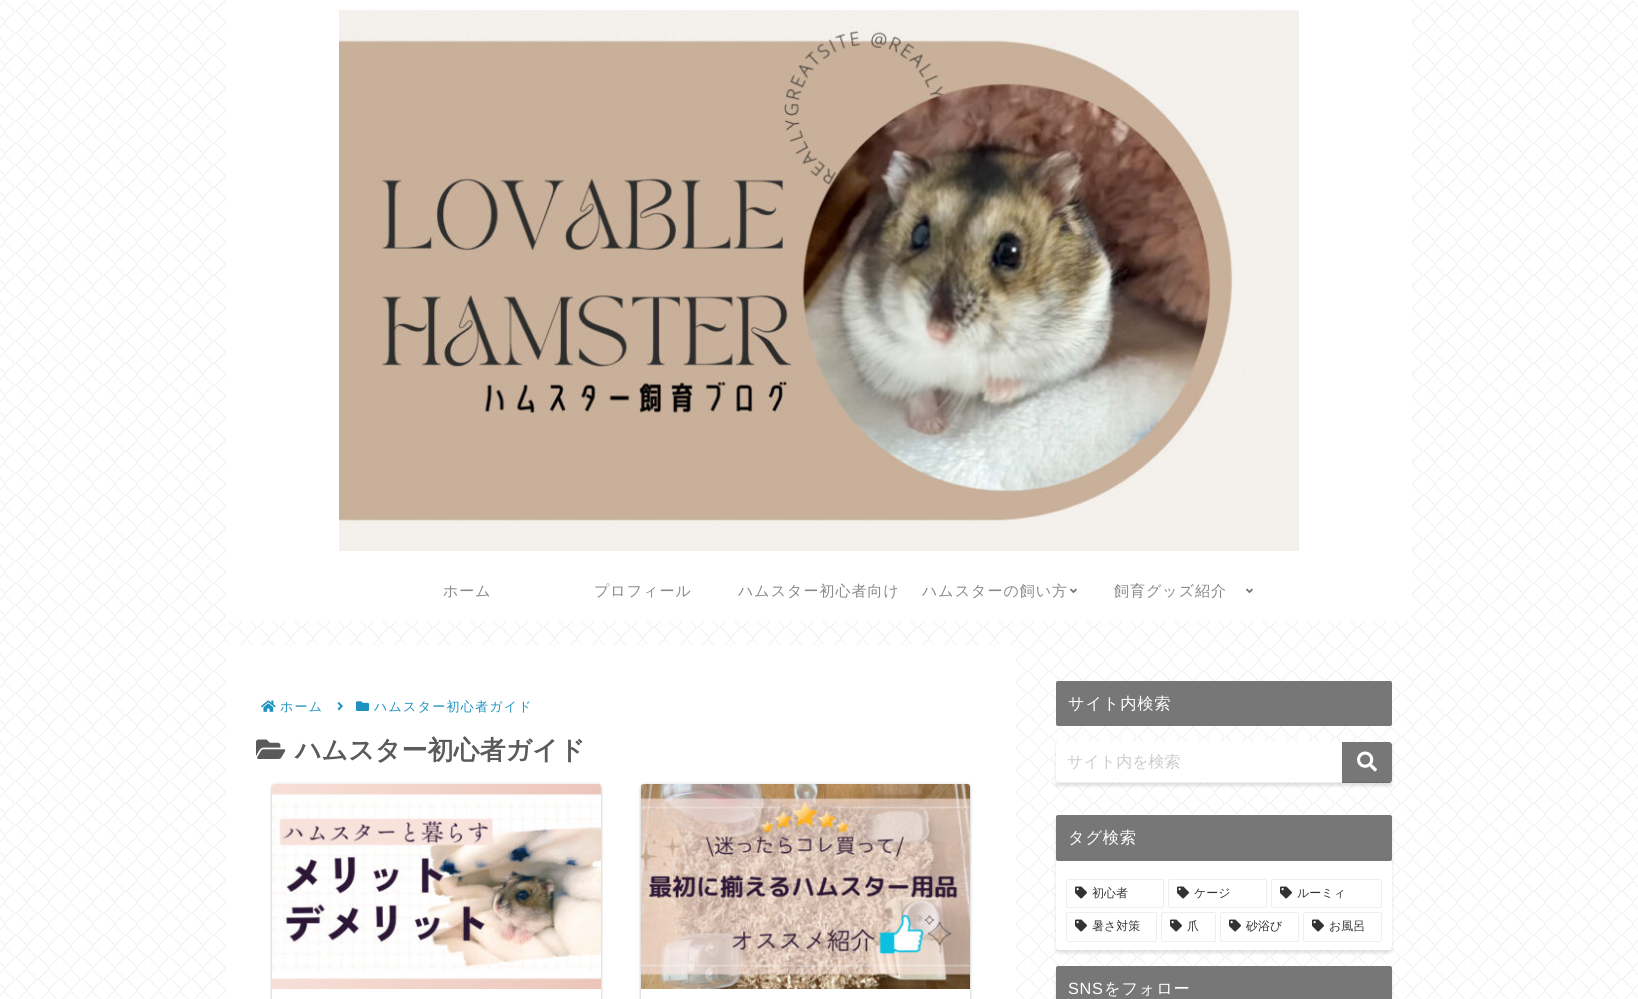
#include <cairo/cairo.h>
#include <math.h>
#include <stddef.h>

static cairo_t *cr;

static void use_color(int r, int g, int b) {
  cairo_set_source_rgb(cr, r / 255.0, g / 255.0, b / 255.0);
}

static void text(double x, double y, const char *s, const char *family, double size, int italic, int bold, int r, int g, int b) {
  cairo_select_font_face(cr, family, italic ? CAIRO_FONT_SLANT_ITALIC : CAIRO_FONT_SLANT_NORMAL,
    bold ? CAIRO_FONT_WEIGHT_BOLD : CAIRO_FONT_WEIGHT_NORMAL);
  cairo_set_font_size(cr, size);
  use_color(r, g, b);
  cairo_move_to(cr, x, y);
  cairo_show_text(cr, s);
}

static void spaced_text(double x, double y, const char *s, double letter, double word) {
  cairo_move_to(cr, x, y);
  while (*s) {
    char ch[5] = {0};
    int n = 0;
    do ch[n++] = *s++; while ((*s & 0xC0) == 0x80);
    cairo_show_text(cr, ch);
    cairo_rel_move_to(cr, letter + word * (*ch == ' '), 0);
  }
}

static void box(double x, double y, double w, double h, int r, int g, int b) {
  use_color(r, g, b);
  cairo_rectangle(cr, x, y, w, h);
  cairo_fill(cr);
}

static void round_rect(double x, double y, double w, double h, double r) {
  cairo_new_sub_path(cr);
  cairo_arc(cr, x + w - r, y + h - r, r, 0, M_PI / 2);
  cairo_arc(cr, x + r, y + h - r, r, M_PI / 2, M_PI);
  cairo_arc(cr, x + r, y + r, r, M_PI, 1.5 * M_PI);
  cairo_arc(cr, x + w - r, y + r, r, 1.5 * M_PI, 2 * M_PI);
  cairo_close_path(cr);
}

static void shadow(double x, double y, double w, double h, double r, double blur, double alpha) {
  cairo_push_group_with_content(cr, CAIRO_CONTENT_ALPHA);
  cairo_set_operator(cr, CAIRO_OPERATOR_SOURCE);
  for (int i = 15; i >= -15 && fmin(w, h) + blur * i / 3 > 0; i -= 2) {
    double e = blur * i / 6;
    cairo_set_source_rgba(cr, 0, 0, 0, alpha * erfc((i - 1) / 8.5) / 2);
    round_rect(x - e, y - e, w + 2 * e, h + 2 * e, fmax(0, fmin(r + e + blur * .6, fmin(w, h) / 2 + e)));
    cairo_fill(cr);
  }
  cairo_pattern_t *soft = cairo_pop_group(cr);
  cairo_mask(cr, soft);
  cairo_pattern_destroy(soft);
}

static void picture(const char *path, double x, double y, double w, double h) {
  cairo_surface_t *image = cairo_image_surface_create_from_png(path);
  cairo_save(cr);
  cairo_set_source_surface(cr, image, x, y);
  cairo_rectangle(cr, x, y, w, h);
  cairo_fill(cr);
  cairo_restore(cr);
  cairo_surface_destroy(image);
}

static void draw(void) {
  use_color(255, 255, 255);
  cairo_paint(cr);
  picture("img_01.png", 0, 0, 1638, 999);
  box(226, 0, 1186, 621, 255, 255, 255);
  picture("img_02.png", 339, 10, 960, 541);
  picture("img_03.png", 1070, 588, 7, 5);
  picture("img_03.png", 1246, 588, 7, 5);
  round_rect(226, 645, 790, 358, 4);
  cairo_fill(cr);
  picture("img_04.png", 261, 700, 15, 12);
  picture("img_05.png", 337, 702, 6, 9);
  picture("img_06.png", 356, 701, 13, 10);
  picture("img_07.png", 256, 739, 30, 20);
  use_color(0, 0, 0);
  shadow(272, 786, 329, 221, 3, 1.5, 0.2);
  shadow(272, 784, 329, 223, 3, 1.5, 0.12);
  use_color(255, 255, 255);
  round_rect(272, 784, 329, 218, 3);
  cairo_fill(cr);
  picture("img_08.png", 272, 784, 329, 205);
  use_color(0, 0, 0);
  shadow(641, 786, 329, 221, 3, 1.5, 0.2);
  shadow(641, 784, 329, 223, 3, 1.5, 0.12);
  use_color(255, 255, 255);
  round_rect(641, 784, 329, 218, 3);
  cairo_fill(cr);
  picture("img_09.png", 641, 784, 329, 205);
  use_color(119, 119, 119);
  round_rect(1056, 681, 336, 45, 2);
  cairo_fill(cr);
  use_color(0, 0, 0);
  shadow(1056, 745, 336, 41, 0, 1.5, 0.12);
  use_color(255, 255, 255);
  round_rect(1056, 742, 336, 41, 4);
  cairo_fill(cr);
  box(1058, 782, 332, 1, 239, 239, 239);
  use_color(119, 119, 119);
  cairo_new_path(cr);
  cairo_move_to(cr, 1342, 742);
  cairo_line_to(cr, 1389, 742);
  cairo_curve_to(cr, 1390.5, 742, 1392, 743.5, 1392, 745);
  cairo_line_to(cr, 1392, 780);
  cairo_curve_to(cr, 1392, 781.5, 1390.5, 783, 1389, 783);
  cairo_line_to(cr, 1342, 783);
  cairo_close_path(cr);
  cairo_fill(cr);
  cairo_set_source_rgba(cr, 0, 0, 0, 0.1);
  cairo_rectangle(cr, 1342, 782, 49, 1);
  cairo_fill(cr);
  picture("img_10.png", 1357, 751, 20, 21);
  use_color(0, 0, 0);
  shadow(1056, 818, 336, 135, 3, 1.5, 0.12);
  use_color(255, 255, 255);
  round_rect(1056, 815, 336, 135, 3);
  cairo_fill(cr);
  use_color(119, 119, 119);
  round_rect(1056, 815, 336, 46, 2);
  cairo_fill(cr);
  round_rect(1066.5, 879.5, 97, 28, 1.5);
  use_color(238, 238, 238);
  cairo_set_line_width(cr, 1);
  cairo_stroke(cr);
  picture("img_11.png", 1075, 886, 12, 13);
  round_rect(1168.5, 879.5, 98, 28, 1.5);
  cairo_stroke(cr);
  picture("img_11.png", 1177, 886, 12, 13);
  round_rect(1271.5, 879.5, 110, 28, 1.5);
  cairo_stroke(cr);
  picture("img_11.png", 1280, 886, 12, 13);
  round_rect(1066.5, 912.5, 90, 29, 1.5);
  cairo_stroke(cr);
  picture("img_11.png", 1075, 919, 12, 13);
  round_rect(1161.5, 912.5, 54, 29, 1.5);
  cairo_stroke(cr);
  picture("img_11.png", 1170, 919, 12, 13);
  round_rect(1220.5, 912.5, 78, 29, 1.5);
  cairo_stroke(cr);
  picture("img_11.png", 1229, 919, 12, 13);
  round_rect(1303.5, 912.5, 78, 29, 1.5);
  cairo_stroke(cr);
  picture("img_11.png", 1312, 919, 12, 13);
  use_color(0, 0, 0);
  shadow(1056, 969, 336, 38, 3, 1.5, 0.12);
  use_color(119, 119, 119);
  round_rect(1056, 966, 336, 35, 2);
  cairo_fill(cr);
  cairo_select_font_face(cr, "WenQuanYi Zen Hei Medium", CAIRO_FONT_SLANT_NORMAL, CAIRO_FONT_WEIGHT_NORMAL);
  cairo_set_font_size(cr, 15);
  use_color(136, 136, 136);
  spaced_text(443, 596, "ホーム", 1, 0);
  spaced_text(594, 596, "プロフィール", 1, 0);
  spaced_text(738, 596, "ハムスター初心者向け", 1, 0);
  spaced_text(922, 596, "ハムスターの飼い方", 1, 0);
  spaced_text(1114, 596, "飼育グッズ紹介", 1, 0);
  cairo_set_font_size(cr, 13);
  use_color(30, 146, 191);
  spaced_text(280, 711, "ホーム", 1.25, 0);
  spaced_text(374, 711, "ハムスター初心者ガイド", 1.25, 0);
  text(295, 759, "ハムスター初心者ガイド", "WenQuanYi Zen Hei", 26, 0, 1, 90, 90, 90);
  cairo_select_font_face(cr, "WenQuanYi Zen Hei Medium", CAIRO_FONT_SLANT_NORMAL, CAIRO_FONT_WEIGHT_NORMAL);
  cairo_set_font_size(cr, 16.25);
  use_color(255, 255, 255);
  spaced_text(1068, 709, "サイト内検索", 0.75, 0);
  text(1067, 767, "サイト内を検索", "WenQuanYi Zen Hei Medium", 16, 0, 0, 204, 204, 204);
  cairo_set_font_size(cr, 16.25);
  use_color(255, 255, 255);
  spaced_text(1068, 843, "タグ検索", 0.75, 0);
  text(1092, 897, "初心者", "WenQuanYi Zen Hei Medium", 12, 0, 0, 51, 51, 51);
  text(1194, 897, "ケージ", "WenQuanYi Zen Hei Medium", 12, 0, 0, 51, 51, 51);
  text(1297, 897, "ルーミィ", "WenQuanYi Zen Hei Medium", 12, 0, 0, 51, 51, 51);
  text(1092, 930, "暑さ対策", "WenQuanYi Zen Hei Medium", 12, 0, 0, 51, 51, 51);
  text(1187, 930, "爪", "WenQuanYi Zen Hei Medium", 12, 0, 0, 51, 51, 51);
  text(1246, 930, "砂浴び", "WenQuanYi Zen Hei Medium", 12, 0, 0, 51, 51, 51);
  text(1329, 930, "お風呂", "WenQuanYi Zen Hei Medium", 12, 0, 0, 51, 51, 51);
  cairo_select_font_face(cr, "Liberation Sans", CAIRO_FONT_SLANT_NORMAL, CAIRO_FONT_WEIGHT_NORMAL);
  cairo_set_font_size(cr, 16.25);
  use_color(255, 255, 255);
  spaced_text(1068, 994, "SNS", 0.75, 0);
  cairo_select_font_face(cr, "WenQuanYi Zen Hei Medium", CAIRO_FONT_SLANT_NORMAL, CAIRO_FONT_WEIGHT_NORMAL);
  spaced_text(1104, 994, "をフォロー", 0.75, 0);
}

int main(void) {
  cairo_surface_t *surface = cairo_image_surface_create(CAIRO_FORMAT_RGB24, 1638, 999);
  cr = cairo_create(surface);
  cairo_font_options_t *options = cairo_font_options_create();
  cairo_font_options_set_hint_metrics(options, CAIRO_HINT_METRICS_OFF);
  cairo_font_options_set_hint_style(options, CAIRO_HINT_STYLE_NONE);
  cairo_set_font_options(cr, options);
  cairo_set_miter_limit(cr, 4);
  draw();
  cairo_surface_write_to_png(surface, "out.png");
  cairo_font_options_destroy(options);
  cairo_destroy(cr);
  cairo_surface_destroy(surface);
  return 0;
}
